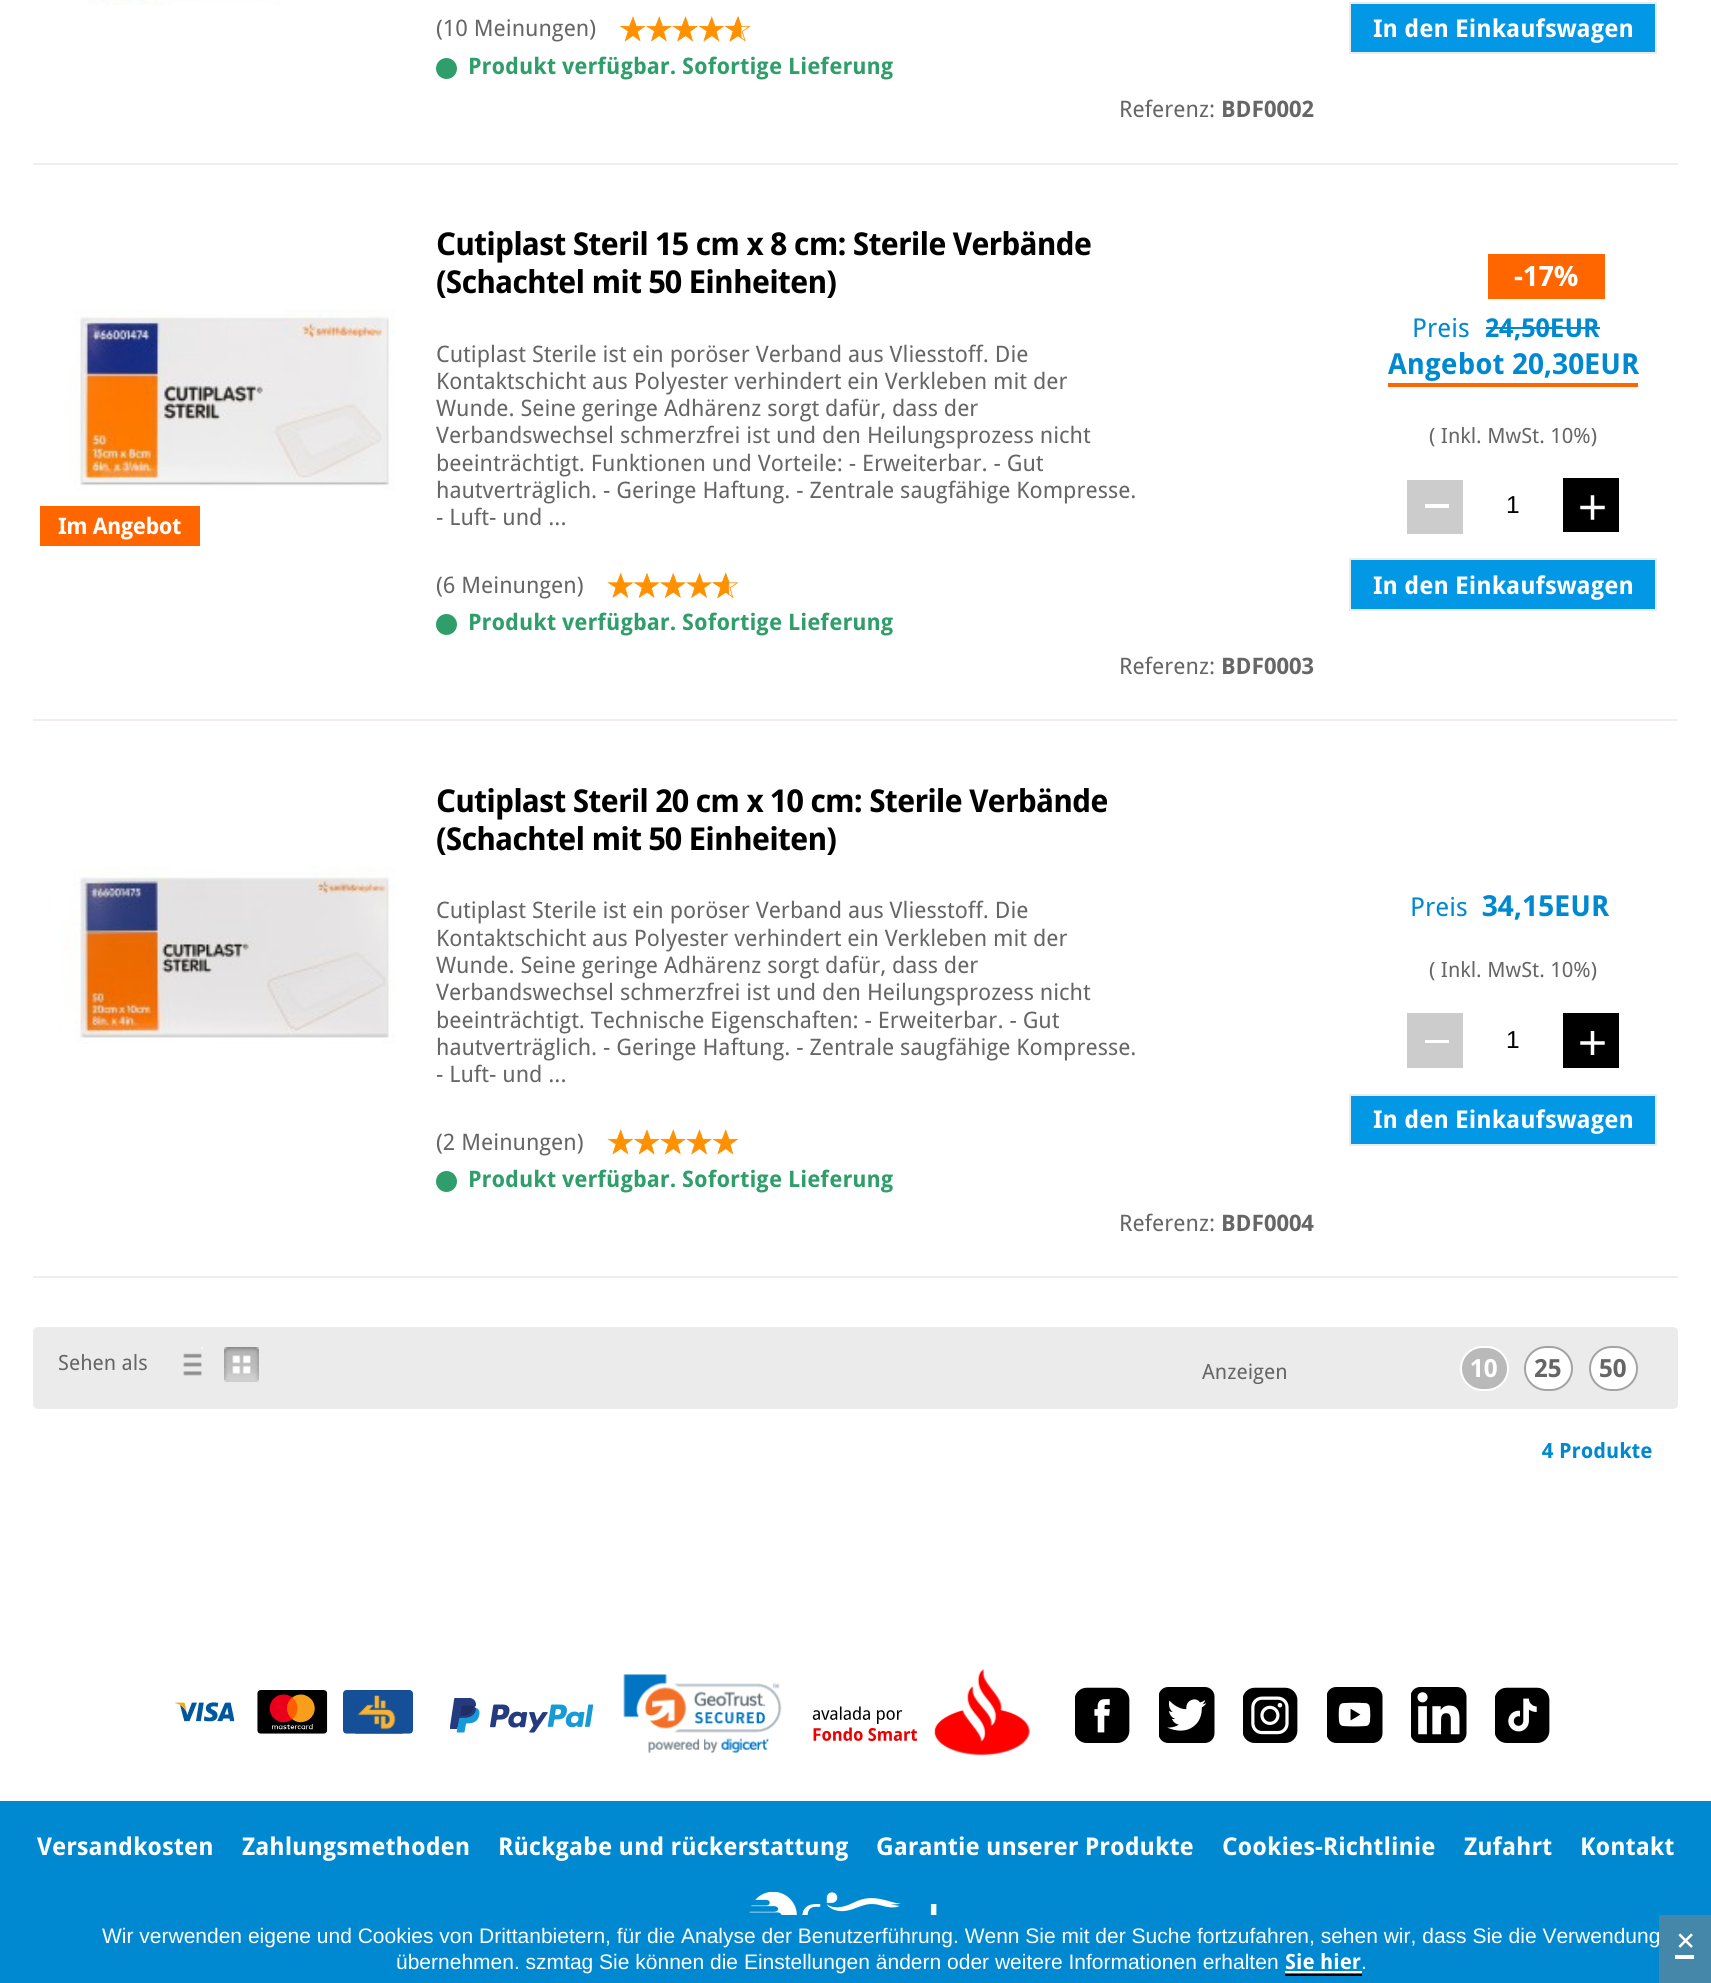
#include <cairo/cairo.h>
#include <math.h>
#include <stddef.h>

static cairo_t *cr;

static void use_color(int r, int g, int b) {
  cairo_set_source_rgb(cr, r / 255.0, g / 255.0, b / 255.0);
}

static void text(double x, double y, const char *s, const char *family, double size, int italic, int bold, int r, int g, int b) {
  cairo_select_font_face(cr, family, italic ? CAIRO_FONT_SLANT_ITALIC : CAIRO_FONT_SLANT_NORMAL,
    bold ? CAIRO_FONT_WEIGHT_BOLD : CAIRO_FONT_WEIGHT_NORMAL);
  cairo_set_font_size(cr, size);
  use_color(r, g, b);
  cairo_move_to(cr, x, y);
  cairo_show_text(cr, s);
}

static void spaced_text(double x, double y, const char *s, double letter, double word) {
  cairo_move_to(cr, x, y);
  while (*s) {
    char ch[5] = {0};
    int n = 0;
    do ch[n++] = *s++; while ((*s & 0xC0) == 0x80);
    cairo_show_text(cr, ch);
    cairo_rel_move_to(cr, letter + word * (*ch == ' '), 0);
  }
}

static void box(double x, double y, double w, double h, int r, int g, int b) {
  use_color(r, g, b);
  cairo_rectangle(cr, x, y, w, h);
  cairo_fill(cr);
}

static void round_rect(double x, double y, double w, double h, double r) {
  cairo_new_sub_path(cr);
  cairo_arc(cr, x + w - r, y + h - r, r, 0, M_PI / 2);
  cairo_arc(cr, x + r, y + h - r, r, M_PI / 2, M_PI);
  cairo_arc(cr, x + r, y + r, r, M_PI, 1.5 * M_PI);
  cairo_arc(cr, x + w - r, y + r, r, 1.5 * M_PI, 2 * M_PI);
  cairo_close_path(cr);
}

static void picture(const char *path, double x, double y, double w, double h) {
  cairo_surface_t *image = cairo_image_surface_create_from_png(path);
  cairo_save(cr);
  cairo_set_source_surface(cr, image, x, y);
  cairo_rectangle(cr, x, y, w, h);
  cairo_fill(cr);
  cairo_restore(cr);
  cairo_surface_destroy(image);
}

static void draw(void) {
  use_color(255, 255, 255);
  cairo_paint(cr);
  box(33, 163, 1645, 2, 242, 237, 237);
  picture("img_01.png", 88, 0, 192, 5);
  picture("img_02.png", 620, 16, 26, 26);
  picture("img_03.png", 646, 16, 26, 26);
  picture("img_04.png", 672, 16, 26, 26);
  picture("img_05.png", 698, 16, 27, 26);
  picture("img_06.png", 725, 16, 26, 26);
  use_color(47, 158, 106);
  cairo_arc(cr, 446.5, 68.5, 10.5, 0, 2 * M_PI);
  cairo_fill(cr);
  use_color(3, 152, 230);
  cairo_rectangle(cr, 1350, 3, 306, 50);
  cairo_fill_preserve(cr);
  use_color(235, 235, 235);
  cairo_stroke(cr);
  box(33, 719, 1645, 2, 242, 237, 237);
  picture("img_07.png", 67, 309, 328, 182);
  box(40, 506, 160, 40, 255, 102, 0);
  picture("img_08.png", 607, 572, 27, 26);
  picture("img_09.png", 634, 572, 26, 26);
  picture("img_10.png", 660, 572, 26, 26);
  picture("img_11.png", 686, 572, 26, 26);
  picture("img_12.png", 712, 572, 27, 26);
  use_color(47, 158, 106);
  cairo_arc(cr, 446.5, 624.5, 10.5, 0, 2 * M_PI);
  cairo_fill(cr);
  box(1488, 254, 117, 45, 255, 102, 0);
  box(1486, 327, 114, 2, 0, 137, 208);
  box(1388, 383, 250, 4, 255, 102, 0);
  box(1407, 480, 56, 54, 204, 204, 204);
  box(1425, 504, 24, 4, 255, 255, 255);
  box(1563, 478, 56, 54, 0, 0, 0);
  picture("img_13.png", 1580, 495, 25, 25);
  use_color(3, 152, 230);
  cairo_rectangle(cr, 1350, 559, 306, 51);
  cairo_fill_preserve(cr);
  use_color(235, 235, 235);
  cairo_stroke(cr);
  box(33, 1276, 1645, 2, 242, 237, 237);
  picture("img_14.png", 60, 866, 336, 178);
  picture("img_05.png", 607, 1129, 27, 26);
  picture("img_02.png", 634, 1129, 26, 26);
  picture("img_03.png", 660, 1129, 26, 26);
  picture("img_04.png", 686, 1129, 26, 26);
  picture("img_05.png", 712, 1129, 27, 26);
  use_color(47, 158, 106);
  cairo_arc(cr, 446.5, 1181.5, 10.5, 0, 2 * M_PI);
  cairo_fill(cr);
  box(1407, 1013, 56, 55, 204, 204, 204);
  box(1425, 1040, 24, 3, 255, 255, 255);
  box(1563, 1013, 56, 55, 0, 0, 0);
  picture("img_15.png", 1580, 1031, 25, 24);
  use_color(3, 152, 230);
  cairo_rectangle(cr, 1350, 1095, 306, 50);
  cairo_fill_preserve(cr);
  use_color(235, 235, 235);
  cairo_stroke(cr);
  round_rect(33, 1327, 1645, 82, 5);
  cairo_fill(cr);
  picture("img_16.png", 183, 1347, 21, 29);
  picture("img_17.png", 224, 1347, 35, 35);
  use_color(185, 185, 185);
  round_rect(1461, 1347, 47, 43, 21.5);
  cairo_fill_preserve(cr);
  use_color(255, 255, 255);
  cairo_stroke(cr);
  round_rect(1525, 1347, 47, 43, 21.5);
  cairo_fill_preserve(cr);
  use_color(163, 163, 163);
  cairo_stroke(cr);
  use_color(255, 255, 255);
  round_rect(1590, 1347, 47, 43, 21.5);
  cairo_fill_preserve(cr);
  use_color(163, 163, 163);
  cairo_stroke(cr);
  picture("img_18.png", 175, 1690, 238, 44);
  picture("img_19.png", 450, 1698, 143, 35);
  picture("img_20.png", 623, 1674, 159, 79);
  picture("img_21.png", 812, 1669, 218, 87);
  picture("img_22.png", 1075, 1687, 55, 56);
  picture("img_23.png", 1159, 1687, 56, 56);
  picture("img_24.png", 1243, 1687, 55, 56);
  picture("img_25.png", 1327, 1687, 56, 56);
  picture("img_26.png", 1411, 1687, 56, 56);
  picture("img_27.png", 1495, 1687, 55, 56);
  box(0, 1801, 1711, 182, 0, 137, 208);
  picture("img_28.png", 749, 1892, 188, 23);
  box(1285, 1974, 77, 2, 0, 0, 0);
  box(1285, 1971, 77, 2, 255, 255, 255);
  text(436, 36, "(10 Meinungen)", "Droid Sans", 22.75, 0, 0, 102, 102, 102);
  text(468, 74, "Produkt verfügbar. Sofortige Lieferung", "Droid Sans", 22.75, 0, 1, 47, 158, 106);
  text(1119, 117, "Referenz:", "Droid Sans", 22.75, 0, 0, 102, 102, 102);
  text(1221, 117, "BDF0002", "Droid Sans", 22.75, 0, 1, 102, 102, 102);
  text(1373, 37, "In den Einkaufswagen", "Droid Sans", 24.5, 0, 1, 255, 255, 255);
  cairo_set_font_size(cr, 31.5);
  use_color(0, 0, 0);
  spaced_text(436, 255, "Cutiplast Steril 15 cm x 8 cm: Sterile Verbände", -0.9, 0);
  spaced_text(436, 293, "(Schachtel mit 50 Einheiten)", -0.9, 0);
  cairo_set_font_size(cr, 22.75);
  use_color(255, 255, 255);
  spaced_text(58, 534, "Im Angebot", -0.5, 0);
  text(436, 362, "Cutiplast Sterile ist ein poröser Verband aus Vliesstoff. Die", "Droid Sans", 22.75, 0, 0, 102, 102, 102);
  text(436, 389, "Kontaktschicht aus Polyester verhindert ein Verkleben mit der", "Droid Sans", 22.75, 0, 0, 102, 102, 102);
  text(436, 416, "Wunde. Seine geringe Adhärenz sorgt dafür, dass der", "Droid Sans", 22.75, 0, 0, 102, 102, 102);
  text(436, 443, "Verbandswechsel schmerzfrei ist und den Heilungsprozess nicht", "Droid Sans", 22.75, 0, 0, 102, 102, 102);
  text(436, 471, "beeinträchtigt. Funktionen und Vorteile: - Erweiterbar. - Gut", "Droid Sans", 22.75, 0, 0, 102, 102, 102);
  text(436, 498, "hautverträglich. - Geringe Haftung. - Zentrale saugfähige Kompresse.", "Droid Sans", 22.75, 0, 0, 102, 102, 102);
  text(436, 525, "- Luft- und ...", "Droid Sans", 22.75, 0, 0, 102, 102, 102);
  text(436, 593, "(6 Meinungen)", "Droid Sans", 22.75, 0, 0, 102, 102, 102);
  text(468, 630, "Produkt verfügbar. Sofortige Lieferung", "Droid Sans", 22.75, 0, 1, 47, 158, 106);
  text(1119, 674, "Referenz:", "Droid Sans", 22.75, 0, 0, 102, 102, 102);
  text(1221, 674, "BDF0003", "Droid Sans", 22.75, 0, 1, 102, 102, 102);
  text(1514, 286, "-17%", "Droid Sans", 28, 0, 1, 255, 255, 255);
  text(1412, 337, "Preis", "Droid Sans", 26, 0, 0, 0, 137, 208);
  text(1485, 337, "24,50EUR", "Droid Sans", 26, 0, 1, 0, 137, 208);
  text(1388, 374, "Angebot 20,30EUR", "Droid Sans", 28.9, 0, 1, 0, 137, 208);
  text(1429, 443, "( Inkl. MwSt. 10%)", "Droid Sans", 21, 0, 0, 102, 102, 102);
  text(1506, 513, "1", "Liberation Sans", 24.5, 0, 0, 0, 0, 0);
  text(1373, 594, "In den Einkaufswagen", "Droid Sans", 24.5, 0, 1, 255, 255, 255);
  cairo_set_font_size(cr, 31.5);
  use_color(0, 0, 0);
  spaced_text(436, 812, "Cutiplast Steril 20 cm x 10 cm: Sterile Verbände", -0.9, 0);
  spaced_text(436, 850, "(Schachtel mit 50 Einheiten)", -0.9, 0);
  text(436, 918, "Cutiplast Sterile ist ein poröser Verband aus Vliesstoff. Die", "Droid Sans", 22.75, 0, 0, 102, 102, 102);
  text(436, 946, "Kontaktschicht aus Polyester verhindert ein Verkleben mit der", "Droid Sans", 22.75, 0, 0, 102, 102, 102);
  text(436, 973, "Wunde. Seine geringe Adhärenz sorgt dafür, dass der", "Droid Sans", 22.75, 0, 0, 102, 102, 102);
  text(436, 1000, "Verbandswechsel schmerzfrei ist und den Heilungsprozess nicht", "Droid Sans", 22.75, 0, 0, 102, 102, 102);
  text(436, 1028, "beeinträchtigt. Technische Eigenschaften: - Erweiterbar. - Gut", "Droid Sans", 22.75, 0, 0, 102, 102, 102);
  text(436, 1055, "hautverträglich. - Geringe Haftung. - Zentrale saugfähige Kompresse.", "Droid Sans", 22.75, 0, 0, 102, 102, 102);
  text(436, 1082, "- Luft- und ...", "Droid Sans", 22.75, 0, 0, 102, 102, 102);
  text(436, 1150, "(2 Meinungen)", "Droid Sans", 22.75, 0, 0, 102, 102, 102);
  text(468, 1187, "Produkt verfügbar. Sofortige Lieferung", "Droid Sans", 22.75, 0, 1, 47, 158, 106);
  text(1119, 1231, "Referenz:", "Droid Sans", 22.75, 0, 0, 102, 102, 102);
  text(1221, 1231, "BDF0004", "Droid Sans", 22.75, 0, 1, 102, 102, 102);
  text(1410, 916, "Preis", "Droid Sans", 26, 0, 0, 0, 137, 208);
  text(1482, 916, "34,15EUR", "Droid Sans", 28.9, 0, 1, 0, 137, 208);
  text(1429, 977, "( Inkl. MwSt. 10%)", "Droid Sans", 21, 0, 0, 102, 102, 102);
  text(1506, 1048, "1", "Liberation Sans", 24.5, 0, 0, 0, 0, 0);
  text(1373, 1128, "In den Einkaufswagen", "Droid Sans", 24.5, 0, 1, 255, 255, 255);
  text(58, 1370, "Sehen als", "Droid Sans", 21, 0, 0, 102, 102, 102);
  text(1202, 1379, "Anzeigen", "Droid Sans", 21, 0, 0, 102, 102, 102);
  text(1470, 1377, "10", "Droid Sans", 25, 0, 1, 255, 255, 255);
  text(1534, 1377, "25", "Droid Sans", 25, 0, 1, 102, 102, 102);
  text(1599, 1377, "50", "Droid Sans", 25, 0, 1, 102, 102, 102);
  text(1542, 1458, "4 Produkte", "Droid Sans", 21, 0, 1, 0, 137, 208);
  text(37, 1855, "Versandkosten", "Droid Sans", 24.5, 0, 1, 255, 255, 255);
  text(242, 1855, "Zahlungsmethoden", "Droid Sans", 24.5, 0, 1, 255, 255, 255);
  text(498, 1855, "Rückgabe und rückerstattung", "Droid Sans", 24.5, 0, 1, 255, 255, 255);
  text(876, 1855, "Garantie unserer Produkte", "Droid Sans", 24.5, 0, 1, 255, 255, 255);
  text(1222, 1855, "Cookies-Richtlinie", "Droid Sans", 24.5, 0, 1, 255, 255, 255);
  text(1464, 1855, "Zufahrt", "Droid Sans", 24.5, 0, 1, 255, 255, 255);
  text(1580, 1855, "Kontakt", "Droid Sans", 24.5, 0, 1, 255, 255, 255);
  text(102, 1943, "Wir verwenden eigene und Cookies von Drittanbietern, für die Analyse der Benutzerführung. Wenn Sie mit der Suche fortzufahren, sehen wir, dass Sie die Verwendung", "Liberation Sans", 21, 0, 0, 255, 255, 255);
  cairo_set_source_rgba(cr, 0.545, 0.525, 0.51, 0.5);
  cairo_rectangle(cr, 1659, 1915, 52, 68);
  cairo_fill(cr);
  text(1676, 1953, "×", "Droid Sans", 35, 0, 0, 255, 255, 255);
  box(1675, 1955, 19, 4, 255, 255, 255);
  text(396, 1969, "übernehmen. szmtag Sie können die Einstellungen ändern oder weitere Informationen erhalten", "Liberation Sans", 21, 0, 0, 255, 255, 255);
  text(1285, 1969, "Sie hier", "Droid Sans", 21, 0, 1, 255, 255, 255);
  text(1361, 1969, ".", "Liberation Sans", 21, 0, 0, 255, 255, 255);
}

int main(void) {
  cairo_surface_t *surface = cairo_image_surface_create(CAIRO_FORMAT_RGB24, 1711, 1983);
  cr = cairo_create(surface);
  cairo_font_options_t *options = cairo_font_options_create();
  cairo_font_options_set_hint_metrics(options, CAIRO_HINT_METRICS_OFF);
  cairo_font_options_set_hint_style(options, CAIRO_HINT_STYLE_NONE);
  cairo_set_font_options(cr, options);
  cairo_set_miter_limit(cr, 4);
  draw();
  cairo_surface_write_to_png(surface, "out.png");
  cairo_font_options_destroy(options);
  cairo_destroy(cr);
  cairo_surface_destroy(surface);
  return 0;
}
